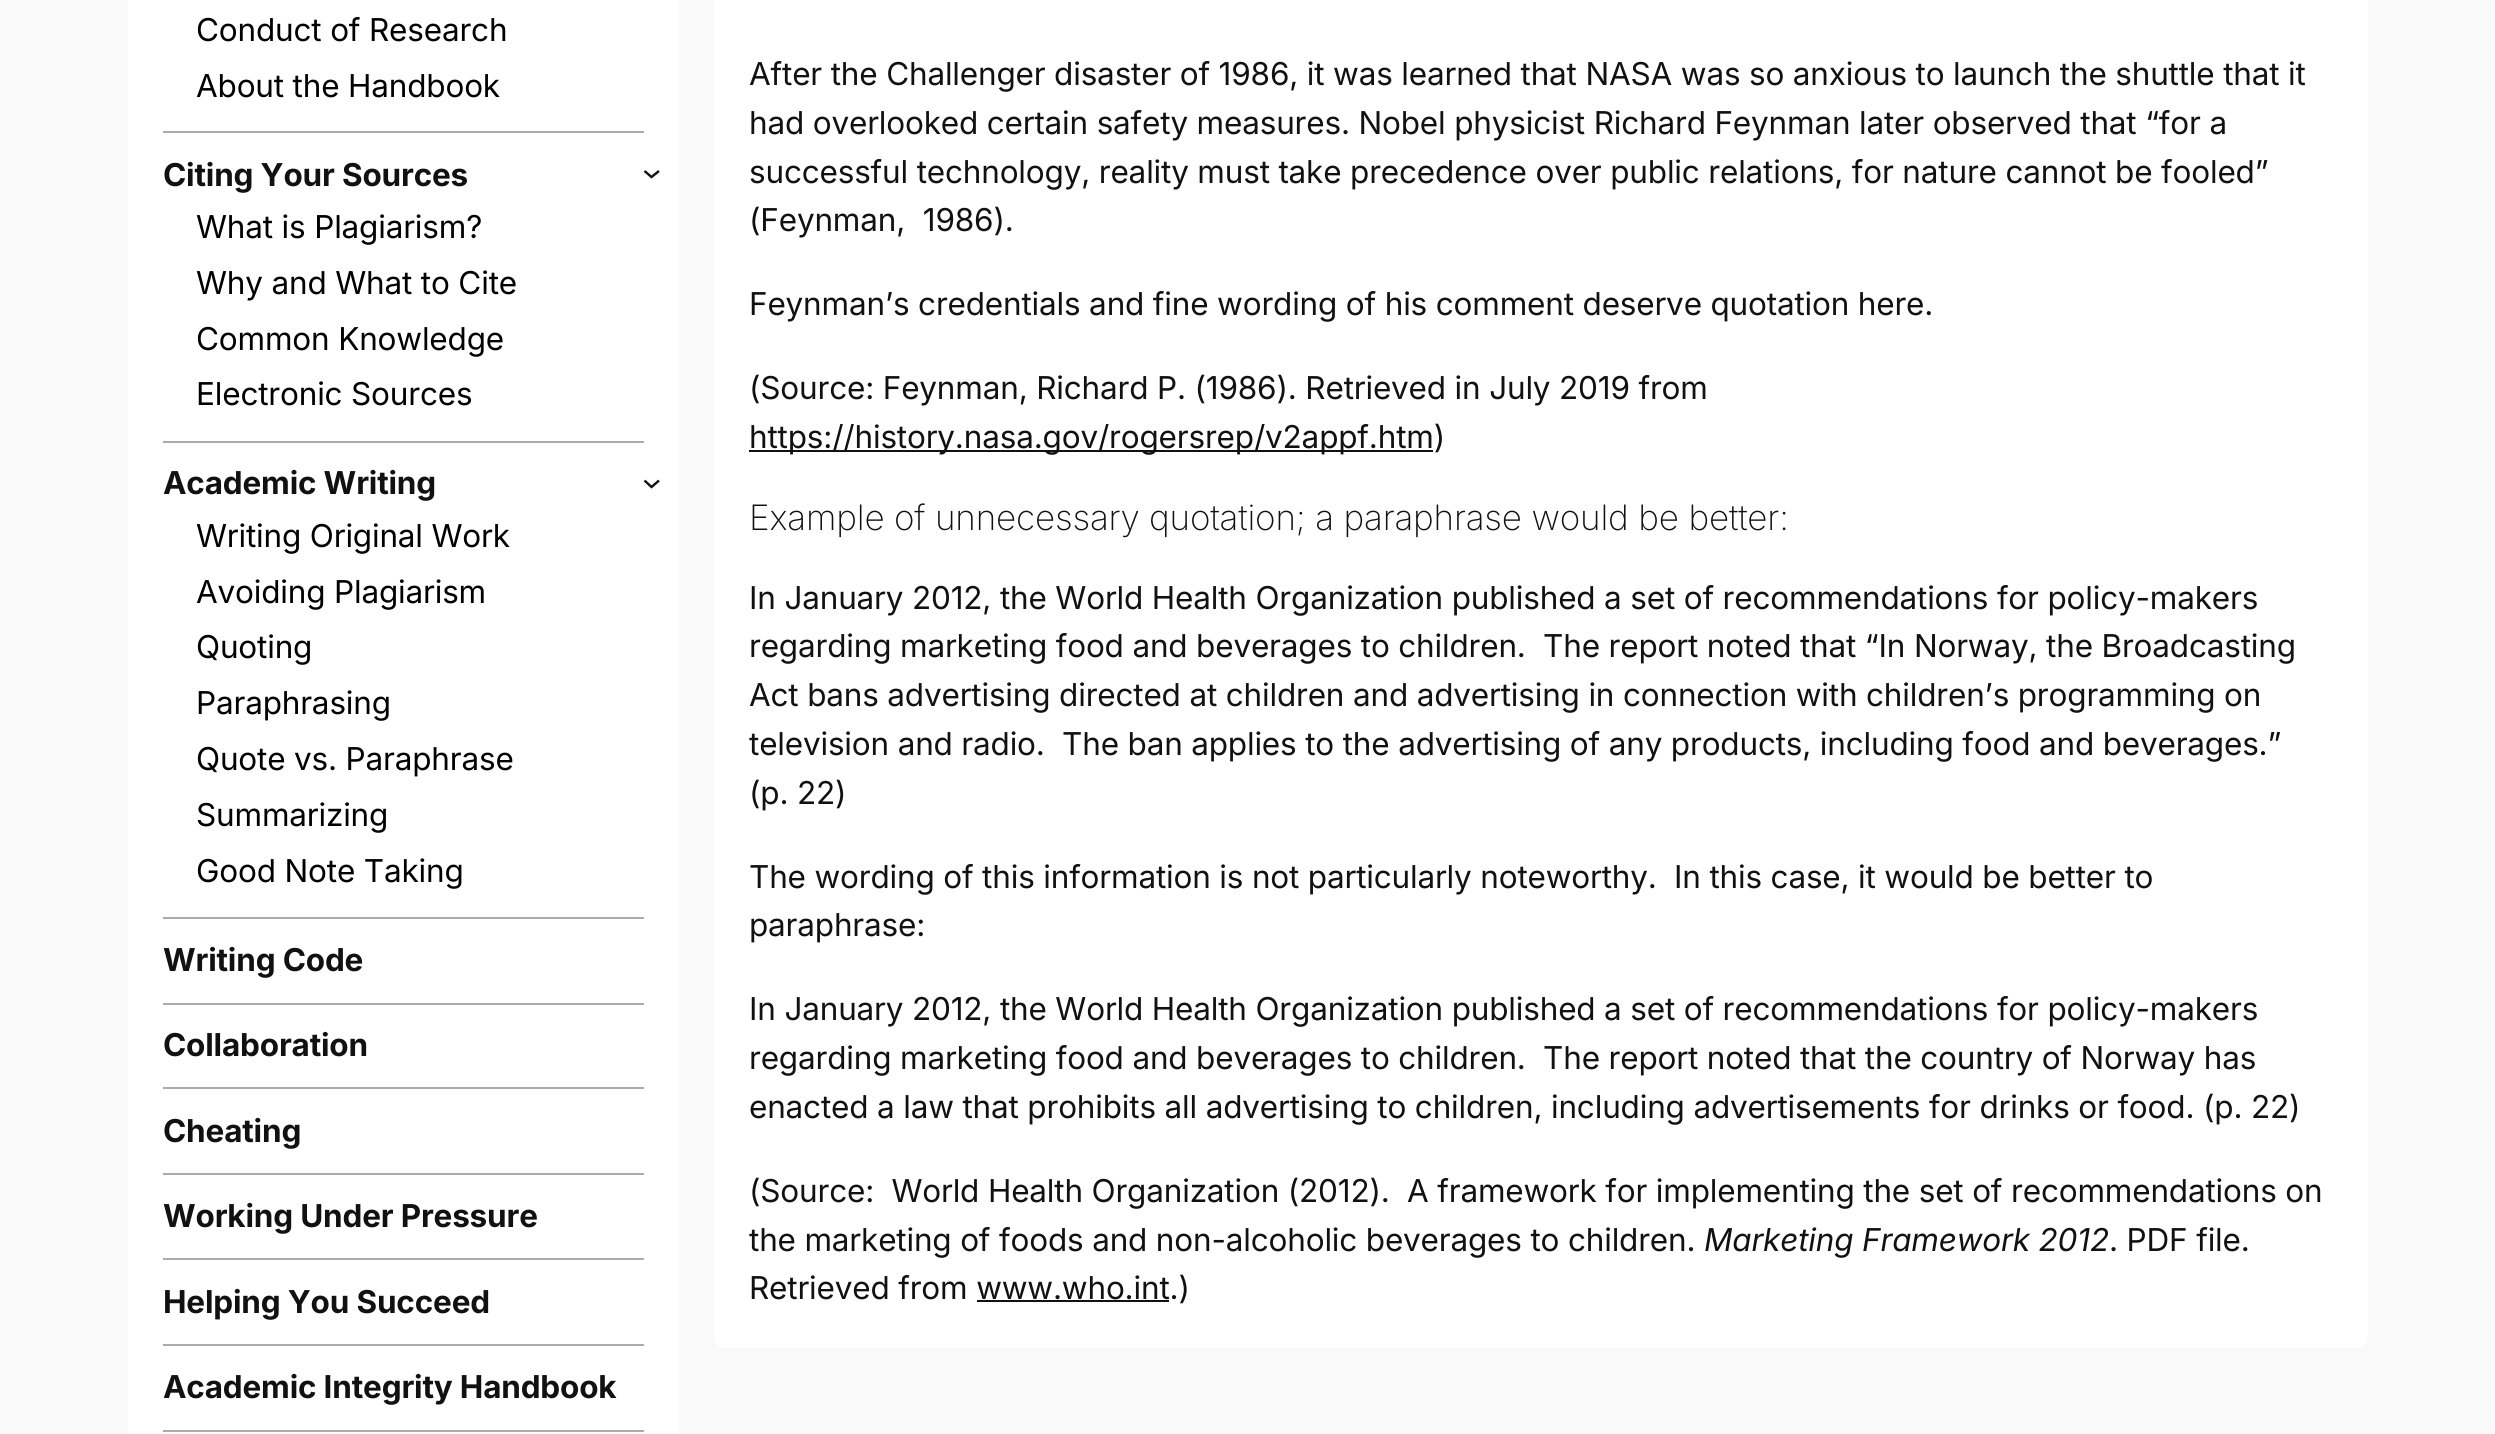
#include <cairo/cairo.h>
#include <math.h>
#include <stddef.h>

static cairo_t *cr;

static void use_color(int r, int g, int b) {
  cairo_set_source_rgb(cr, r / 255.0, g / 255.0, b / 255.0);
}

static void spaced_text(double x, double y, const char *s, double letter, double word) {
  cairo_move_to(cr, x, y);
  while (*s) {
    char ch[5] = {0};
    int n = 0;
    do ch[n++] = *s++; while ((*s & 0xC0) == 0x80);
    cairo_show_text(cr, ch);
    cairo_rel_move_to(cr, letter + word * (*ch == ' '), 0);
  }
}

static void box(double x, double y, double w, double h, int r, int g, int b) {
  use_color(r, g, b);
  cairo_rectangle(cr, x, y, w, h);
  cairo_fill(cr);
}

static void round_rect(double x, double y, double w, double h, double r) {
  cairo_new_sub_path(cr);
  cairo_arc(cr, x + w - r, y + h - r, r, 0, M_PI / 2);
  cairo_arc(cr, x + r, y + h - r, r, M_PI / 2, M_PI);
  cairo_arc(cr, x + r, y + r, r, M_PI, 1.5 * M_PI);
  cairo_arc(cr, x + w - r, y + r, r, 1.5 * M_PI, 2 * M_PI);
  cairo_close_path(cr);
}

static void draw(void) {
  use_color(249, 249, 249);
  cairo_paint(cr);
  box(128, 0, 551, 1434, 255, 255, 255);
  box(163, 131, 481, 2, 171, 171, 171);
  box(163, 441, 481, 2, 171, 171, 171);
  cairo_new_path(cr);
  cairo_move_to(cr, 644.5, 171);
  cairo_line_to(cr, 651.5, 177);
  cairo_line_to(cr, 659, 171);
  use_color(17, 17, 17);
  cairo_set_line_width(cr, 2.4);
  cairo_stroke(cr);
  box(163, 917, 481, 2, 171, 171, 171);
  cairo_new_path(cr);
  cairo_move_to(cr, 644.5, 480.5);
  cairo_line_to(cr, 651.5, 487);
  cairo_line_to(cr, 659, 480.5);
  use_color(17, 17, 17);
  cairo_stroke(cr);
  box(163, 1003, 481, 2, 171, 171, 171);
  box(163, 1087, 481, 2, 171, 171, 171);
  box(163, 1173, 481, 2, 171, 171, 171);
  box(163, 1258, 481, 2, 171, 171, 171);
  box(163, 1344, 481, 2, 171, 171, 171);
  box(163, 1430, 481, 2, 171, 171, 171);
  use_color(255, 255, 255);
  round_rect(714, -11, 1654, 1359, 11);
  cairo_fill(cr);
  box(749, 450, 684, 2, 17, 17, 17);
  box(977, 1300, 192, 2, 17, 17, 17);
  cairo_select_font_face(cr, "Inter", CAIRO_FONT_SLANT_NORMAL, CAIRO_FONT_WEIGHT_NORMAL);
  cairo_set_font_size(cr, 31.5);
  use_color(0, 0, 0);
  spaced_text(196, 41, "Conduct of Research", -0.18, 0);
  spaced_text(196, 97, "About the Handbook", -0.18, 0);
  cairo_select_font_face(cr, "Inter", CAIRO_FONT_SLANT_NORMAL, CAIRO_FONT_WEIGHT_BOLD);
  use_color(17, 17, 17);
  spaced_text(163, 186, "Citing Your Sources", -0.18, 0);
  cairo_select_font_face(cr, "Inter", CAIRO_FONT_SLANT_NORMAL, CAIRO_FONT_WEIGHT_NORMAL);
  use_color(0, 0, 0);
  spaced_text(196, 238, "What is Plagiarism?", -0.18, 0);
  spaced_text(196, 294, "Why and What to Cite", -0.18, 0);
  spaced_text(196, 350, "Common Knowledge", -0.18, 0);
  spaced_text(196, 405, "Electronic Sources", -0.18, 0);
  cairo_select_font_face(cr, "Inter", CAIRO_FONT_SLANT_NORMAL, CAIRO_FONT_WEIGHT_BOLD);
  use_color(17, 17, 17);
  spaced_text(163, 494, "Academic Writing", -0.18, 0);
  cairo_select_font_face(cr, "Inter", CAIRO_FONT_SLANT_NORMAL, CAIRO_FONT_WEIGHT_NORMAL);
  use_color(0, 0, 0);
  spaced_text(196, 547, "Writing Original Work", -0.18, 0);
  spaced_text(196, 603, "Avoiding Plagiarism", -0.18, 0);
  spaced_text(196, 658, "Quoting", -0.18, 0);
  spaced_text(196, 714, "Paraphrasing", -0.18, 0);
  spaced_text(196, 770, "Quote vs. Paraphrase", -0.18, 0);
  spaced_text(196, 826, "Summarizing", -0.18, 0);
  spaced_text(196, 882, "Good Note Taking", -0.18, 0);
  cairo_select_font_face(cr, "Inter", CAIRO_FONT_SLANT_NORMAL, CAIRO_FONT_WEIGHT_BOLD);
  use_color(17, 17, 17);
  spaced_text(163, 971, "Writing Code", -0.18, 0);
  spaced_text(163, 1056, "Collaboration", -0.18, 0);
  spaced_text(163, 1142, "Cheating", -0.18, 0);
  spaced_text(163, 1227, "Working Under Pressure", -0.18, 0);
  spaced_text(163, 1313, "Helping You Succeed", -0.18, 0);
  spaced_text(163, 1398, "Academic Integrity Handbook", -0.18, 0);
  cairo_select_font_face(cr, "Inter", CAIRO_FONT_SLANT_NORMAL, CAIRO_FONT_WEIGHT_NORMAL);
  spaced_text(749, 85, "After the Challenger disaster of 1986, it was learned that NASA was so anxious to launch the shuttle that it", -0.18, 0);
  spaced_text(749, 134, "had overlooked certain safety measures. Nobel physicist Richard Feynman later observed that “for a", -0.18, 0);
  spaced_text(749, 183, "successful technology, reality must take precedence over public relations, for nature cannot be fooled”", -0.18, 0);
  spaced_text(749, 231, "(Feynman, 1986).", -0.18, 9);
  spaced_text(749, 315, "Feynman’s credentials and fine wording of his comment deserve quotation here.", -0.18, 0);
  spaced_text(749, 399, "(Source: Feynman, Richard P. (1986). Retrieved in July 2019 from", -0.18, 0);
  spaced_text(749, 448, "https://history.nasa.gov/rogersrep/v2appf.htm)", -0.18, 0);
  cairo_select_font_face(cr, "Inter ExtraLight", CAIRO_FONT_SLANT_NORMAL, CAIRO_FONT_WEIGHT_NORMAL);
  cairo_set_font_size(cr, 35);
  spaced_text(749, 530, "Example of unnecessary quotation; a paraphrase would be better:", -0.18, 0);
  cairo_select_font_face(cr, "Inter", CAIRO_FONT_SLANT_NORMAL, CAIRO_FONT_WEIGHT_NORMAL);
  cairo_set_font_size(cr, 31.5);
  spaced_text(749, 609, "In January 2012, the World Health Organization published a set of recommendations for policy-makers", -0.18, 0);
  spaced_text(749, 657, "regarding marketing food and beverages to children.  The report noted that “In Norway, the Broadcasting", -0.18, 0);
  spaced_text(749, 706, "Act bans advertising directed at children and advertising in connection with children’s programming on", -0.18, 0);
  spaced_text(749, 755, "television and radio.  The ban applies to the advertising of any products, including food and beverages.”", -0.18, 0);
  spaced_text(749, 804, "(p. 22)", -0.18, 0);
  spaced_text(749, 888, "The wording of this information is not particularly noteworthy.  In this case, it would be better to", -0.18, 0);
  spaced_text(749, 936, "paraphrase:", -0.18, 0);
  spaced_text(749, 1020, "In January 2012, the World Health Organization published a set of recommendations for policy-makers", -0.18, 0);
  spaced_text(749, 1069, "regarding marketing food and beverages to children.  The report noted that the country of Norway has", -0.18, 0);
  spaced_text(749, 1118, "enacted a law that prohibits all advertising to children, including advertisements for drinks or food. (p. 22)", -0.18, 0);
  spaced_text(749, 1202, "(Source:  World Health Organization (2012).  A framework for implementing the set of recommendations on", -0.18, 0);
  spaced_text(749, 1251, "the marketing of foods and non-alcoholic beverages to children.", -0.18, 0);
  cairo_select_font_face(cr, "Inter", CAIRO_FONT_SLANT_ITALIC, CAIRO_FONT_WEIGHT_NORMAL);
  spaced_text(1704, 1251, "Marketing Framework 2012", -0.18, 0);
  cairo_select_font_face(cr, "Inter", CAIRO_FONT_SLANT_NORMAL, CAIRO_FONT_WEIGHT_NORMAL);
  spaced_text(2109, 1251, ". PDF file.", -0.18, 0);
  spaced_text(749, 1299, "Retrieved from www.who.int.)", -0.18, 0);
}

int main(void) {
  cairo_surface_t *surface = cairo_image_surface_create(CAIRO_FORMAT_RGB24, 2495, 1434);
  cr = cairo_create(surface);
  cairo_font_options_t *options = cairo_font_options_create();
  cairo_font_options_set_hint_metrics(options, CAIRO_HINT_METRICS_OFF);
  cairo_font_options_set_hint_style(options, CAIRO_HINT_STYLE_NONE);
  cairo_set_font_options(cr, options);
  cairo_set_miter_limit(cr, 4);
  draw();
  cairo_surface_write_to_png(surface, "out.png");
  cairo_font_options_destroy(options);
  cairo_destroy(cr);
  cairo_surface_destroy(surface);
  return 0;
}
